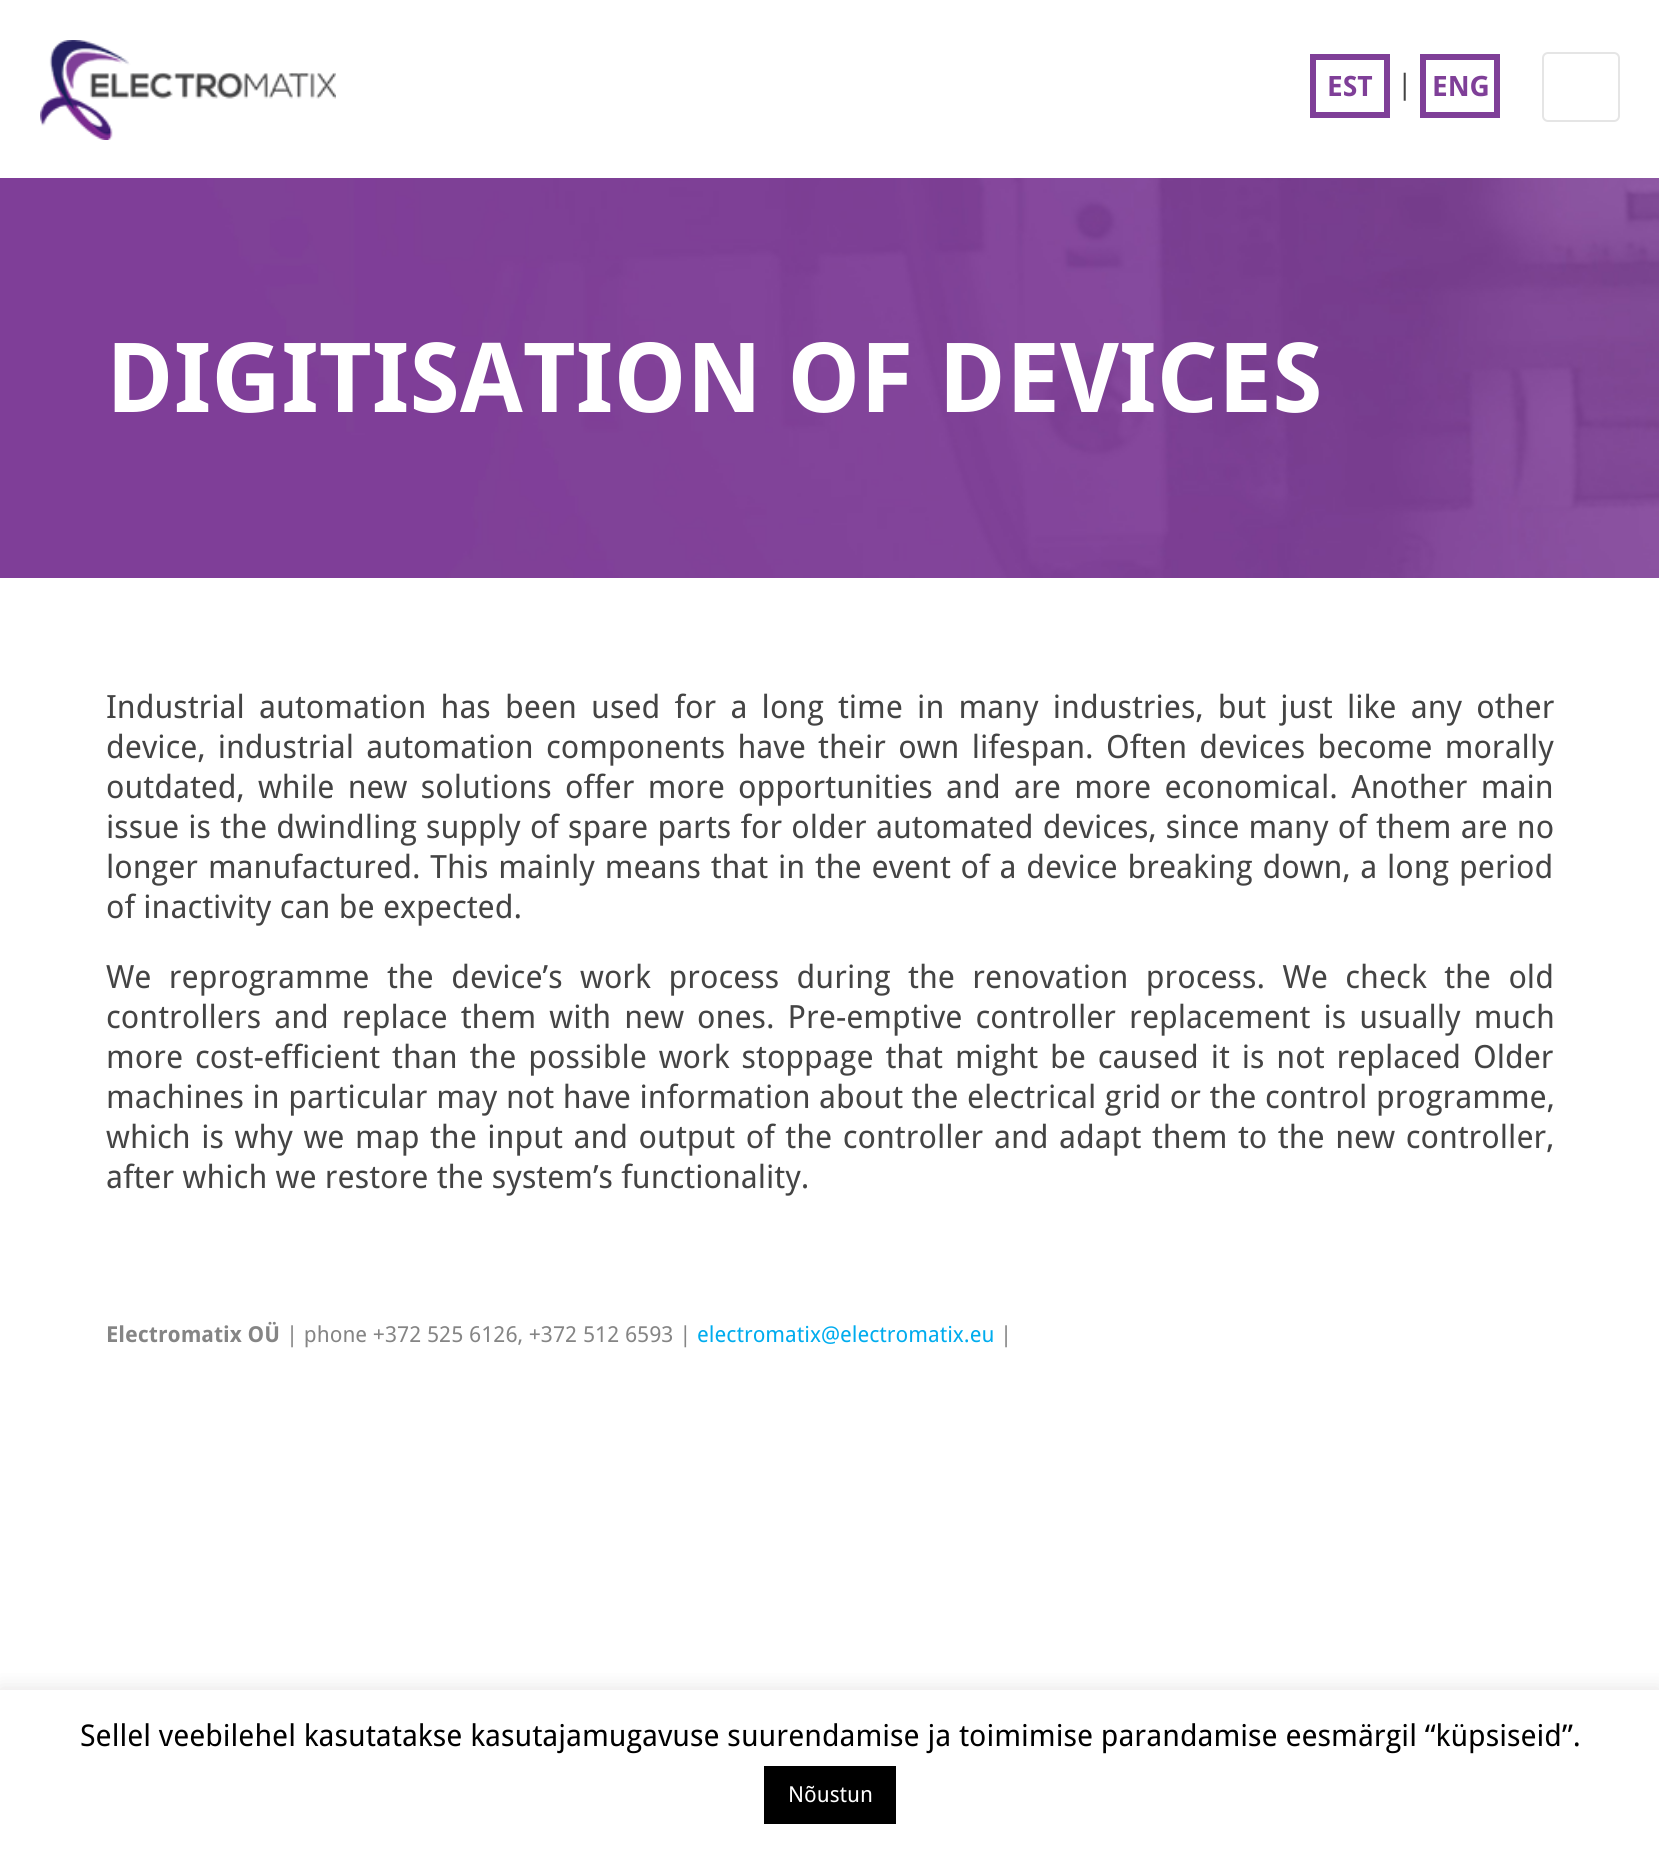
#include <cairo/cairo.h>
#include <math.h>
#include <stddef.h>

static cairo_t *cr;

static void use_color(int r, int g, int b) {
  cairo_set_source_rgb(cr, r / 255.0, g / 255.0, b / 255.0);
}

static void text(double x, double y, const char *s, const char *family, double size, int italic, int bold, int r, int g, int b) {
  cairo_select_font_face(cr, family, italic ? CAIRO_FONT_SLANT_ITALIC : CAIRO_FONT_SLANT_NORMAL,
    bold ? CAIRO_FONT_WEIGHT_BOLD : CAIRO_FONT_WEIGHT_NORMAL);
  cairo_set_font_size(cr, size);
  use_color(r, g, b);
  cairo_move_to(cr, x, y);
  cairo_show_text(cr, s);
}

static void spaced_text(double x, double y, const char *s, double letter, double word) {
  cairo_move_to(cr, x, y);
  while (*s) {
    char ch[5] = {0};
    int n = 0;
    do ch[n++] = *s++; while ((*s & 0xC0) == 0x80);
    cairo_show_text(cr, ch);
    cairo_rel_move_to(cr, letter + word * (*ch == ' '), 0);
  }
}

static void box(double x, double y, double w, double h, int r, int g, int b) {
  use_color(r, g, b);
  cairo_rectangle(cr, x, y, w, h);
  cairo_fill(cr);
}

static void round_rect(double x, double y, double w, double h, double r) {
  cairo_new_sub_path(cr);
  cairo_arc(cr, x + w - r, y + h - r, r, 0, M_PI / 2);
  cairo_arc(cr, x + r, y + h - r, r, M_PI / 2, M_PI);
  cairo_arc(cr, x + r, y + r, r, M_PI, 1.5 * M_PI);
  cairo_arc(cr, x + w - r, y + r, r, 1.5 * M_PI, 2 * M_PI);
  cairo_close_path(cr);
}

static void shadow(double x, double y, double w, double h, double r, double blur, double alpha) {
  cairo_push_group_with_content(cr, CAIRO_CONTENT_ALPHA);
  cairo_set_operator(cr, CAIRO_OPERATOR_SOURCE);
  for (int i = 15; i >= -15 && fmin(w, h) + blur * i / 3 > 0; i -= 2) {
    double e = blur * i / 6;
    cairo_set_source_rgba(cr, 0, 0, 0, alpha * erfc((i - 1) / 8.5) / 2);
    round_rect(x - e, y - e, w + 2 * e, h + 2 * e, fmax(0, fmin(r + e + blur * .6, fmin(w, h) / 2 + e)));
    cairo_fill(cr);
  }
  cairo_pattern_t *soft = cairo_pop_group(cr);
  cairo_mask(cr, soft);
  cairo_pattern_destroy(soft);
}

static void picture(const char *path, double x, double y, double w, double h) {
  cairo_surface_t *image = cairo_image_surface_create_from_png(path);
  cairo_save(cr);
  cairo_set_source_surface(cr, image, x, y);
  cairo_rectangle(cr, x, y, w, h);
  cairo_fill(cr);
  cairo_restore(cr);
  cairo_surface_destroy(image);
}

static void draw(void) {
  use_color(255, 255, 255);
  cairo_paint(cr);
  picture("img_01.png", 40, 40, 296, 100);
  cairo_rectangle(cr, 1313, 57, 74, 58);
  use_color(127, 63, 152);
  cairo_set_line_width(cr, 6);
  cairo_stroke(cr);
  cairo_rectangle(cr, 1423, 57, 74, 58);
  cairo_stroke(cr);
  round_rect(1543, 53, 76, 68, 5);
  use_color(229, 229, 229);
  cairo_set_line_width(cr, 2);
  cairo_stroke(cr);
  picture("img_02.png", 0, 178, 1659, 400);
  cairo_save(cr);
  cairo_rectangle(cr, 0, 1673, 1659, 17);
  cairo_clip(cr);
  use_color(172, 171, 171);
  shadow(0, 1688, 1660, 168, 0, 10, 0.3);
  cairo_restore(cr);
  box(764, 1766, 132, 58, 0, 0, 0);
  text(1327, 96, "EST", "Droid Sans", 28, 0, 1, 127, 63, 152);
  text(1397, 94, "|", "Droid Sans", 28, 0, 0, 68, 68, 68);
  text(1432, 96, "ENG", "Droid Sans", 28, 0, 1, 127, 63, 152);
  text(106, 412, "DIGITISATION OF DEVICES", "Droid Sans", 96.6, 0, 1, 255, 255, 255);
  cairo_select_font_face(cr, "Droid Sans", CAIRO_FONT_SLANT_NORMAL, CAIRO_FONT_WEIGHT_NORMAL);
  cairo_set_font_size(cr, 32);
  use_color(68, 68, 68);
  spaced_text(106, 718, "Industrial automation has been used for a long time in many industries, but just like any other", 0, 5.9);
  spaced_text(106, 758, "device, industrial automation components have their own lifespan. Often devices become morally", 0, 4);
  spaced_text(106, 798, "outdated, while new solutions offer more opportunities and are more economical. Another main", 0, 5);
  spaced_text(106, 838, "issue is the dwindling supply of spare parts for older automated devices, since many of them are no", 0, 0.9);
  spaced_text(106, 878, "longer manufactured. This mainly means that in the event of a device breaking down, a long period", 0, 1.5);
  text(106, 918, "of inactivity can be expected.", "Droid Sans", 32, 0, 0, 68, 68, 68);
  spaced_text(106, 988, "We reprogramme the device’s work process during the renovation process. We check the old", 0, 9.1);
  spaced_text(106, 1028, "controllers and replace them with new ones. Pre-emptive controller replacement is usually much", 0, 4.75);
  spaced_text(106, 1068, "more cost-efficient than the possible work stoppage that might be caused it is not replaced Older", 0, 3.6);
  spaced_text(106, 1108, "machines in particular may not have information about the electrical grid or the control programme,", 0, 0.25);
  spaced_text(106, 1148, "which is why we map the input and output of the controller and adapt them to the new controller,", 0, 2.25);
  text(106, 1188, "after which we restore the system’s functionality.", "Droid Sans", 32, 0, 0, 68, 68, 68);
  text(106, 1342, "Electromatix OÜ", "Droid Sans", 22, 0, 1, 133, 133, 133);
  text(286, 1342, "| phone +372 525 6126, +372 512 6593 |", "Droid Sans", 22, 0, 0, 133, 133, 133);
  text(697, 1342, "electromatix@electromatix.eu", "Droid Sans", 22, 0, 0, 0, 172, 238);
  text(1000, 1342, "|", "Droid Sans", 22, 0, 0, 133, 133, 133);
  text(80, 1746, "Sellel veebilehel kasutatakse kasutajamugavuse suurendamise ja toimimise parandamise eesmärgil “küpsiseid”.", "Droid Sans", 30, 0, 0, 0, 0, 0);
  text(788, 1802, "Nõustun", "Droid Sans", 22, 0, 0, 255, 255, 255);
}

int main(void) {
  cairo_surface_t *surface = cairo_image_surface_create(CAIRO_FORMAT_RGB24, 1659, 1858);
  cr = cairo_create(surface);
  cairo_font_options_t *options = cairo_font_options_create();
  cairo_font_options_set_hint_metrics(options, CAIRO_HINT_METRICS_OFF);
  cairo_font_options_set_hint_style(options, CAIRO_HINT_STYLE_NONE);
  cairo_set_font_options(cr, options);
  cairo_set_miter_limit(cr, 4);
  draw();
  cairo_surface_write_to_png(surface, "out.png");
  cairo_font_options_destroy(options);
  cairo_destroy(cr);
  cairo_surface_destroy(surface);
  return 0;
}
